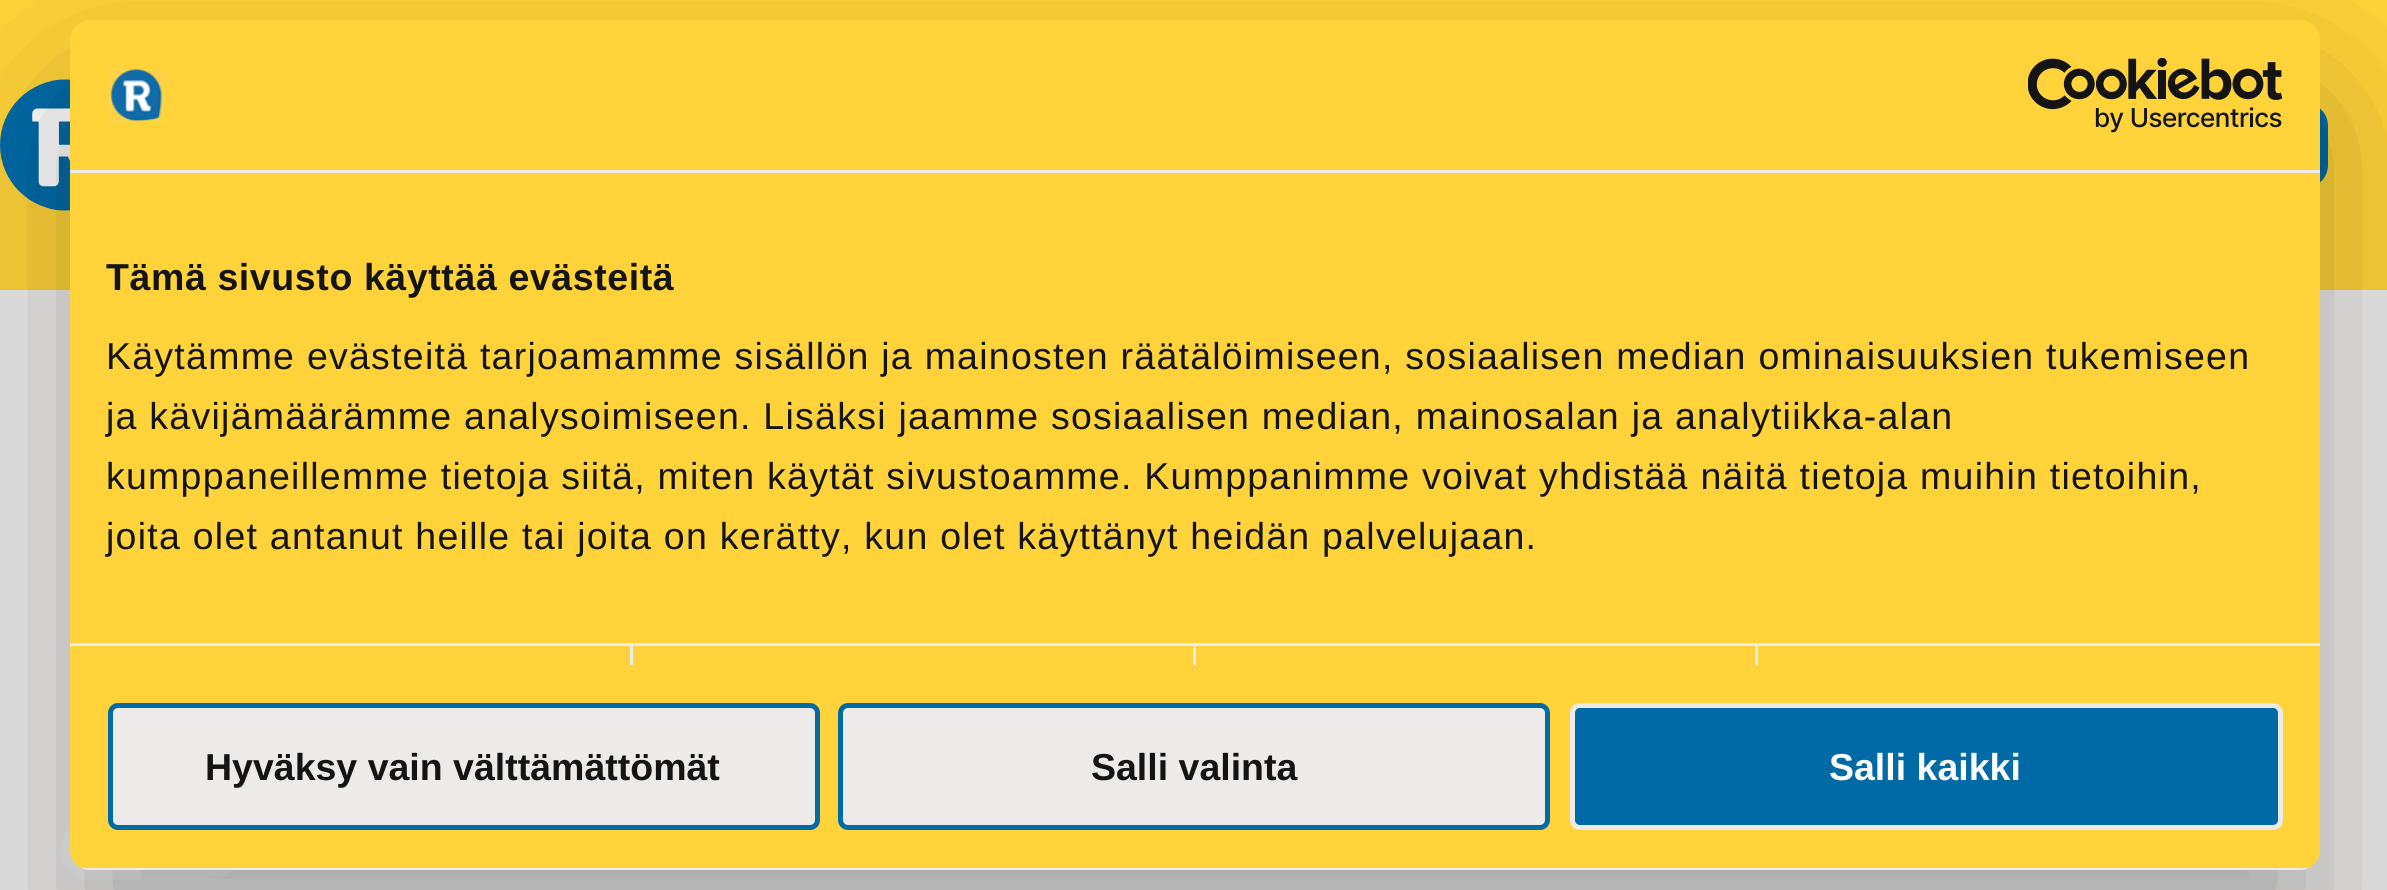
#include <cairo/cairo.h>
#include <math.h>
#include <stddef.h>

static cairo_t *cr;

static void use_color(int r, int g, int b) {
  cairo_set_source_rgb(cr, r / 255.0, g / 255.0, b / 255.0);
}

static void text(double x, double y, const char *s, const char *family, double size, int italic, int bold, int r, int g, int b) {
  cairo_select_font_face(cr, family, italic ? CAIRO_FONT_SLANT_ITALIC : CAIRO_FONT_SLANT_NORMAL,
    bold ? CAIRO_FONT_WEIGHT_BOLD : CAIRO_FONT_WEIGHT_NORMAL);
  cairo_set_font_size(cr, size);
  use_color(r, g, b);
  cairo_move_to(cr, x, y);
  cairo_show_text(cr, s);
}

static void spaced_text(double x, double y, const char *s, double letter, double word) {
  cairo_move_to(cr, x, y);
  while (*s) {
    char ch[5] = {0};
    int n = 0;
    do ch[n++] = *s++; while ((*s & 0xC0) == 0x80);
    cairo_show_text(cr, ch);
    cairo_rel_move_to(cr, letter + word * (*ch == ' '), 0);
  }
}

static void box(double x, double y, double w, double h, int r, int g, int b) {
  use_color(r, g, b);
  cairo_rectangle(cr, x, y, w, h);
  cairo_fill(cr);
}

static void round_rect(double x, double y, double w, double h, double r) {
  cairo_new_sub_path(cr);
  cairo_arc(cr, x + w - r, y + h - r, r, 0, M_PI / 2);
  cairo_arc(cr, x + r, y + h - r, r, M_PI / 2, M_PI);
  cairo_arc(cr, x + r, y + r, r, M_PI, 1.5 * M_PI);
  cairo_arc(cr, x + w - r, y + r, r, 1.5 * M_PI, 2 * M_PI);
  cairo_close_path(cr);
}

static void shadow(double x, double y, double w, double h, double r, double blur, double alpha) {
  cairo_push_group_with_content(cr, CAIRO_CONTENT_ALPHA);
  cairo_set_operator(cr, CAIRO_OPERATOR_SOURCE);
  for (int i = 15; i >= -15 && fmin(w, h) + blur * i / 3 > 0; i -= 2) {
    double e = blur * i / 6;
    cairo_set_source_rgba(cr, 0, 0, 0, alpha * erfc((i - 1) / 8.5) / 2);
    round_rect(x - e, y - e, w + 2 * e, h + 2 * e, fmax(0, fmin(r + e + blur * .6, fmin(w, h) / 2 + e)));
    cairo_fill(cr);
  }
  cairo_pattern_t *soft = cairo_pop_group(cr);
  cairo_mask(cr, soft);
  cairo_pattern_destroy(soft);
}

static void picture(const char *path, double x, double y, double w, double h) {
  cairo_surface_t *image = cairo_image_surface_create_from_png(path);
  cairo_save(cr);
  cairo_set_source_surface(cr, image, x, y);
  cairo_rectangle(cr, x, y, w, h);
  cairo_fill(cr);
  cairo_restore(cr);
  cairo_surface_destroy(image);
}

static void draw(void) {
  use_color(236, 235, 234);
  cairo_paint(cr);
  box(0, 0, 2387, 290, 255, 211, 57);
  picture("img_01.png", 0, 79, 70, 132);
  use_color(0, 106, 166);
  round_rect(2025, 103, 303, 85, 23);
  cairo_fill(cr);
  use_color(239, 239, 239);
  round_rect(60, 823, 178, 57, 28.5);
  cairo_fill(cr);
  use_color(0, 0, 0);
  shadow(70, 100, 2250, 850, 20, 85, 0.3);
  use_color(255, 211, 57);
  round_rect(70, 20, 2250, 850, 20);
  cairo_fill(cr);
  box(70, 170, 2250, 3, 236, 235, 234);
  picture("img_02.png", 107, 67, 58, 56);
  picture("img_03.png", 2028, 58, 255, 75);
  box(630, 645, 3, 20, 236, 235, 234);
  box(1193, 645, 3, 20, 236, 235, 234);
  box(1755, 645, 3, 20, 236, 235, 234);
  box(70, 643, 2250, 3, 236, 235, 234);
  cairo_save(cr);
  round_rect(70, 20, 2250, 850, 20);
  cairo_clip(cr);
  box(81, 868, 2228, 2, 236, 235, 234);
  cairo_restore(cr);
  round_rect(110.5, 705.5, 707, 122, 7.5);
  cairo_fill_preserve(cr);
  use_color(0, 106, 166);
  cairo_set_line_width(cr, 5);
  cairo_stroke(cr);
  use_color(236, 235, 234);
  round_rect(840.5, 705.5, 707, 122, 7.5);
  cairo_fill_preserve(cr);
  use_color(0, 106, 166);
  cairo_stroke(cr);
  round_rect(1572.5, 705.5, 708, 122, 7.5);
  cairo_fill_preserve(cr);
  use_color(236, 235, 234);
  cairo_stroke(cr);
  cairo_select_font_face(cr, "Liberation Sans", CAIRO_FONT_SLANT_NORMAL, CAIRO_FONT_WEIGHT_BOLD);
  cairo_set_font_size(cr, 37.5);
  use_color(20, 20, 20);
  spaced_text(106, 290, "Tämä sivusto käyttää evästeitä", 0.6, 0);
  cairo_select_font_face(cr, "Liberation Sans", CAIRO_FONT_SLANT_NORMAL, CAIRO_FONT_WEIGHT_NORMAL);
  spaced_text(106, 369, "Käytämme evästeitä tarjoamamme sisällön ja mainosten räätälöimiseen, sosiaalisen median ominaisuuksien tukemiseen", 1.25, 0);
  spaced_text(106, 429, "ja kävijämäärämme analysoimiseen. Lisäksi jaamme sosiaalisen median, mainosalan ja analytiikka-alan", 1.25, 0);
  spaced_text(106, 489, "kumppaneillemme tietoja siitä, miten käytät sivustoamme. Kumppanimme voivat yhdistää näitä tietoja muihin tietoihin,", 1.25, 0);
  spaced_text(106, 549, "joita olet antanut heille tai joita on kerätty, kun olet käyttänyt heidän palvelujaan.", 1.25, 0);
  text(205, 780, "Hyväksy vain välttämättömät", "Liberation Sans", 37.5, 0, 1, 20, 20, 20);
  text(1091, 780, "Salli valinta", "Liberation Sans", 37.5, 0, 1, 20, 20, 20);
  text(1829, 780, "Salli kaikki", "Liberation Sans", 37.5, 0, 1, 255, 255, 255);
}

int main(void) {
  cairo_surface_t *surface = cairo_image_surface_create(CAIRO_FORMAT_RGB24, 2387, 890);
  cr = cairo_create(surface);
  cairo_font_options_t *options = cairo_font_options_create();
  cairo_font_options_set_hint_metrics(options, CAIRO_HINT_METRICS_OFF);
  cairo_font_options_set_hint_style(options, CAIRO_HINT_STYLE_NONE);
  cairo_set_font_options(cr, options);
  cairo_set_miter_limit(cr, 4);
  draw();
  cairo_surface_write_to_png(surface, "out.png");
  cairo_font_options_destroy(options);
  cairo_destroy(cr);
  cairo_surface_destroy(surface);
  return 0;
}
